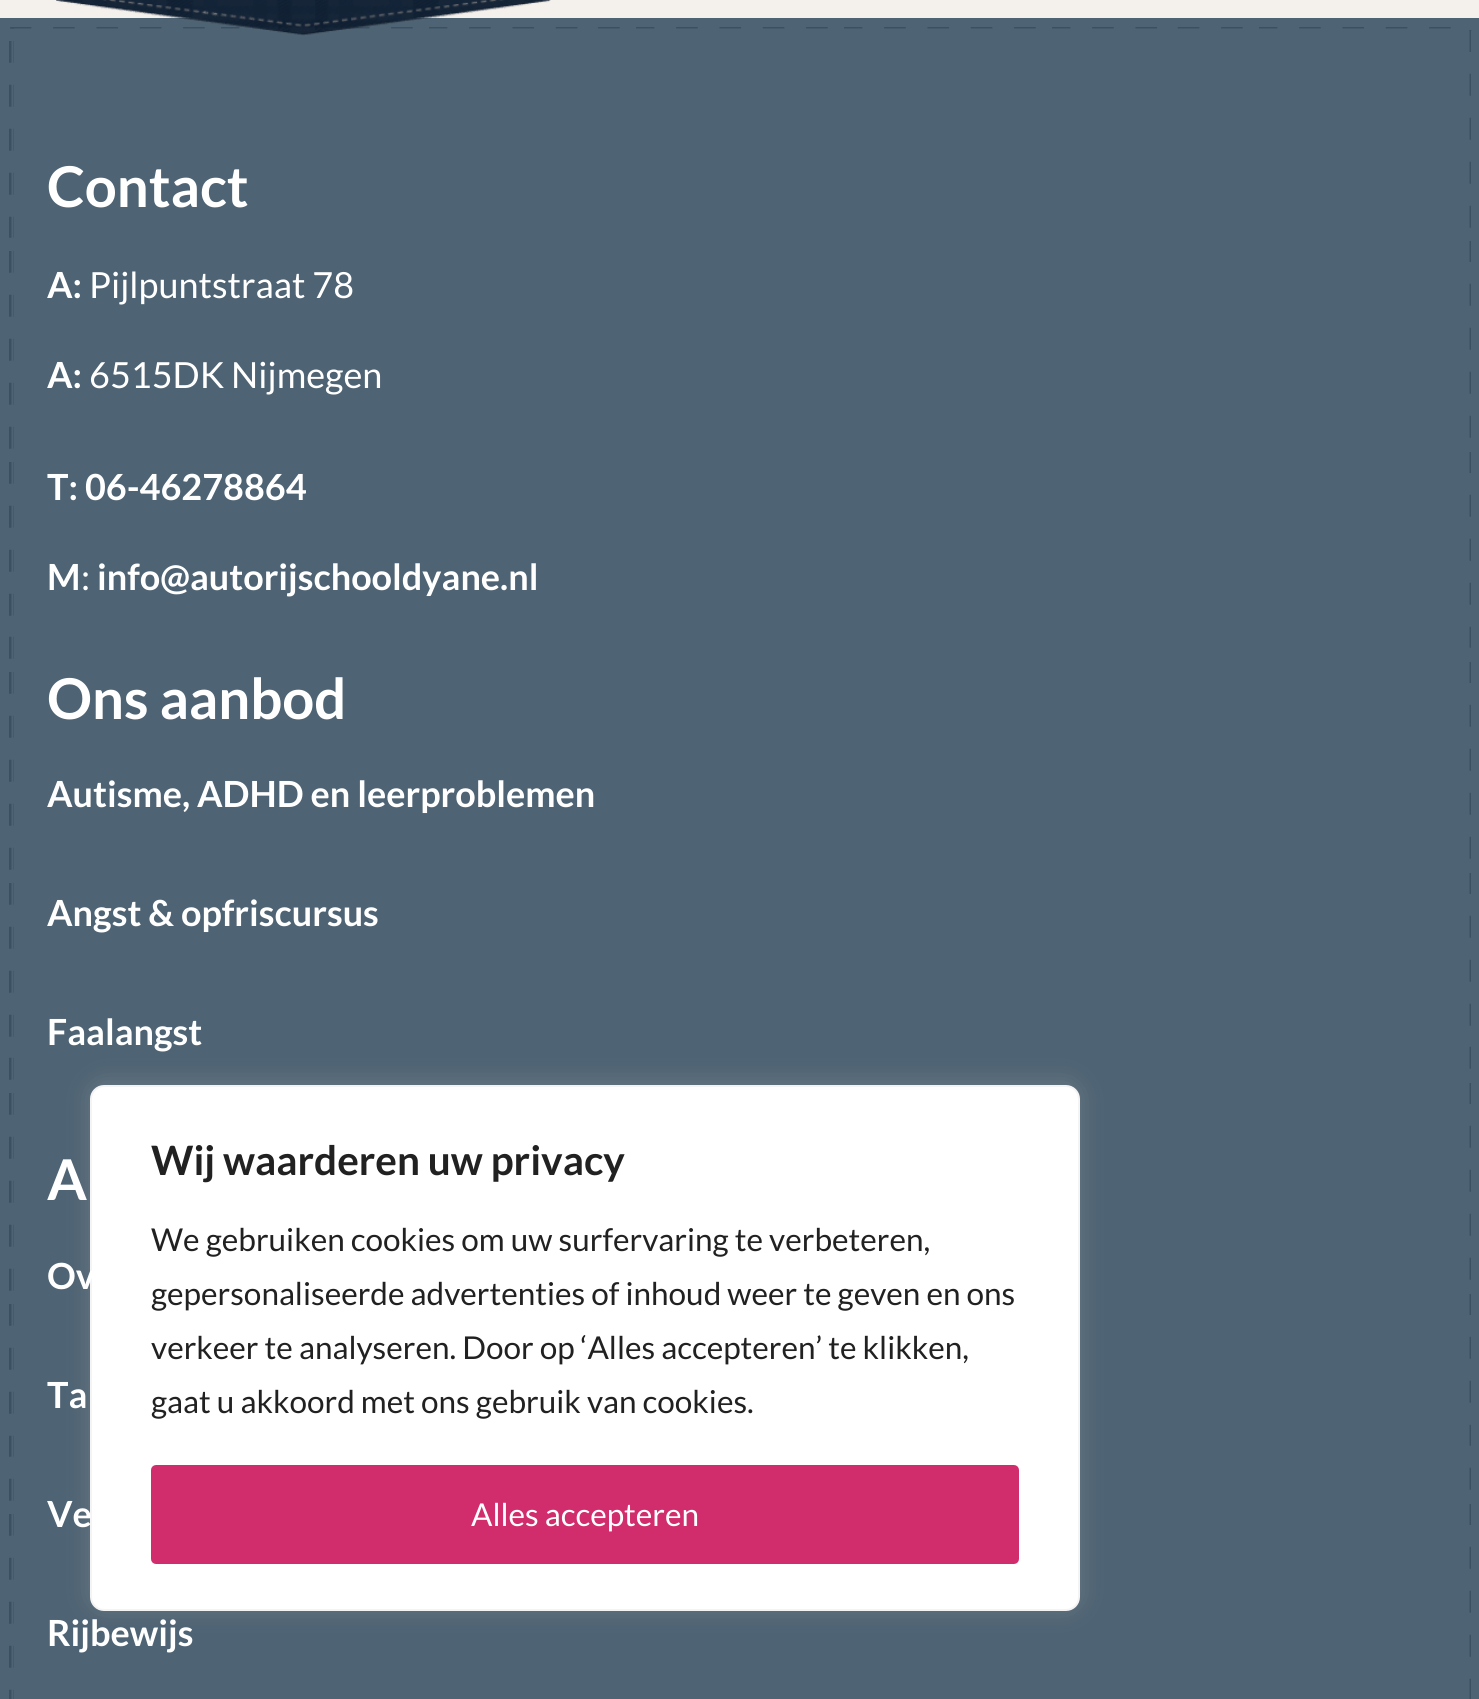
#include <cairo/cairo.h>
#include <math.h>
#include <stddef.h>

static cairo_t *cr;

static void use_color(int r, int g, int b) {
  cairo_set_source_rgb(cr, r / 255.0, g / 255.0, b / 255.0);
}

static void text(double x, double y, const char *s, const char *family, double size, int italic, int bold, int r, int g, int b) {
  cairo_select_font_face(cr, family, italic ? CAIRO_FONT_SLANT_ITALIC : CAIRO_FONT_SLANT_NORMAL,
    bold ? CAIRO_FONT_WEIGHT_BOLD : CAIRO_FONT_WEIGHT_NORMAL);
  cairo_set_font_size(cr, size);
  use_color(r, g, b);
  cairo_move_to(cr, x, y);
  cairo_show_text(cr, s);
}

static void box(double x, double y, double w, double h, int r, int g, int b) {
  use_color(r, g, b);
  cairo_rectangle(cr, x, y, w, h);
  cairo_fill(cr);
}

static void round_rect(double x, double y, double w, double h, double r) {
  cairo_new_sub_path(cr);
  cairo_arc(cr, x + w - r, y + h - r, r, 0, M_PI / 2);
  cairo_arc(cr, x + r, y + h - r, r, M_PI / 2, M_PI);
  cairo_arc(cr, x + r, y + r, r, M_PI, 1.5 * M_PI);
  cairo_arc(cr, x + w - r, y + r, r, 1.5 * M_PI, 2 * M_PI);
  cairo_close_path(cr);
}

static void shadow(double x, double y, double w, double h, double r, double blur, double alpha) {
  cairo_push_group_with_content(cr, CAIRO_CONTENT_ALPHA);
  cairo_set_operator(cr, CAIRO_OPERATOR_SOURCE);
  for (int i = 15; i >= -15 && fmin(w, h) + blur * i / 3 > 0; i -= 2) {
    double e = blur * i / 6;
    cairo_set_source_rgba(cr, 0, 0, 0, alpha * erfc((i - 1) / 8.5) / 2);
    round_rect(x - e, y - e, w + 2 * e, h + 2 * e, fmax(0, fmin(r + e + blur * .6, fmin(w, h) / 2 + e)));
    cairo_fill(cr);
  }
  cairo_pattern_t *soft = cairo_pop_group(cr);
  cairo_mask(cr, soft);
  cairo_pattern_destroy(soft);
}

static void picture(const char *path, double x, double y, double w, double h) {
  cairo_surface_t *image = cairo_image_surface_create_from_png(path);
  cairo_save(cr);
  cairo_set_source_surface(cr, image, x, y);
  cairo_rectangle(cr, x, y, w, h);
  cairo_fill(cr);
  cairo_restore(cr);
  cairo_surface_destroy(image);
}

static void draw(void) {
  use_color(244, 241, 236);
  cairo_paint(cr);
  box(0, 18, 1479, 1681, 78, 99, 115);
  picture("img_02.png", 9, 27, 1463, 1672);
  picture("img_01.png", 56, 0, 495, 36);
  use_color(172, 171, 171);
  shadow(90, 1082, 990, 527, 14, 11, 0.3);
  use_color(255, 255, 255);
  round_rect(91, 1086, 988, 524, 13);
  cairo_fill_preserve(cr);
  use_color(244, 244, 244);
  cairo_stroke(cr);
  use_color(209, 45, 108);
  round_rect(153.5, 1467.5, 863, 94, 2.5);
  cairo_fill_preserve(cr);
  cairo_set_line_width(cr, 5);
  cairo_stroke(cr);
  text(47, 207, "Contact", "Lato", 56.25, 0, 1, 255, 255, 255);
  text(47, 298, "A:", "Lato", 36, 0, 1, 255, 255, 255);
  text(89, 298, "Pijlpuntstraat 78", "Lato", 36, 0, 0, 255, 255, 255);
  text(47, 388, "A:", "Lato", 36, 0, 1, 255, 255, 255);
  text(89, 388, "6515DK Nijmegen", "Lato", 36, 0, 0, 255, 255, 255);
  text(47, 500, "T: 06-46278864", "Lato", 36, 0, 1, 255, 255, 255);
  text(47, 590, "M", "Lato", 36, 0, 1, 255, 255, 255);
  text(81, 590, ":", "Lato", 36, 0, 0, 255, 255, 255);
  text(97, 590, "info@autorijschooldyane.nl", "Lato", 36, 0, 1, 255, 255, 255);
  text(47, 719, "Ons aanbod", "Lato", 56.25, 0, 1, 255, 255, 255);
  text(47, 807, "Autisme, ADHD en leerproblemen", "Lato", 36, 0, 1, 255, 255, 255);
  text(47, 926, "Angst & opfriscursus", "Lato", 36, 0, 1, 255, 255, 255);
  text(47, 1045, "Faalangst", "Lato", 36, 0, 1, 255, 255, 255);
  text(47, 1200, "A", "Lato", 56.25, 0, 1, 255, 255, 255);
  text(47, 1289, "Ov", "Lato", 36, 0, 1, 255, 255, 255);
  text(47, 1408, "Ta", "Lato", 36, 0, 1, 255, 255, 255);
  text(47, 1527, "Ve", "Lato", 36, 0, 1, 255, 255, 255);
  text(47, 1646, "Rijbewijs", "Lato", 36, 0, 1, 255, 255, 255);
  text(151, 1175, "Wij waarderen uw privacy", "Lato", 40.5, 0, 1, 33, 33, 33);
  text(151, 1251, "We gebruiken cookies om uw surfervaring te verbeteren,", "Lato", 31.5, 0, 0, 33, 33, 33);
  text(151, 1305, "gepersonaliseerde advertenties of inhoud weer te geven en ons", "Lato", 31.5, 0, 0, 33, 33, 33);
  text(151, 1359, "verkeer te analyseren. Door op ‘Alles accepteren’ te klikken,", "Lato", 31.5, 0, 0, 33, 33, 33);
  text(151, 1413, "gaat u akkoord met ons gebruik van cookies.", "Lato", 31.5, 0, 0, 33, 33, 33);
  text(471, 1526, "Alles accepteren", "Lato", 31.5, 0, 0, 255, 255, 255);
}

int main(void) {
  cairo_surface_t *surface = cairo_image_surface_create(CAIRO_FORMAT_RGB24, 1479, 1699);
  cr = cairo_create(surface);
  cairo_font_options_t *options = cairo_font_options_create();
  cairo_font_options_set_hint_metrics(options, CAIRO_HINT_METRICS_OFF);
  cairo_font_options_set_hint_style(options, CAIRO_HINT_STYLE_NONE);
  cairo_set_font_options(cr, options);
  cairo_set_miter_limit(cr, 4);
  draw();
  cairo_surface_write_to_png(surface, "out.png");
  cairo_font_options_destroy(options);
  cairo_destroy(cr);
  cairo_surface_destroy(surface);
  return 0;
}
